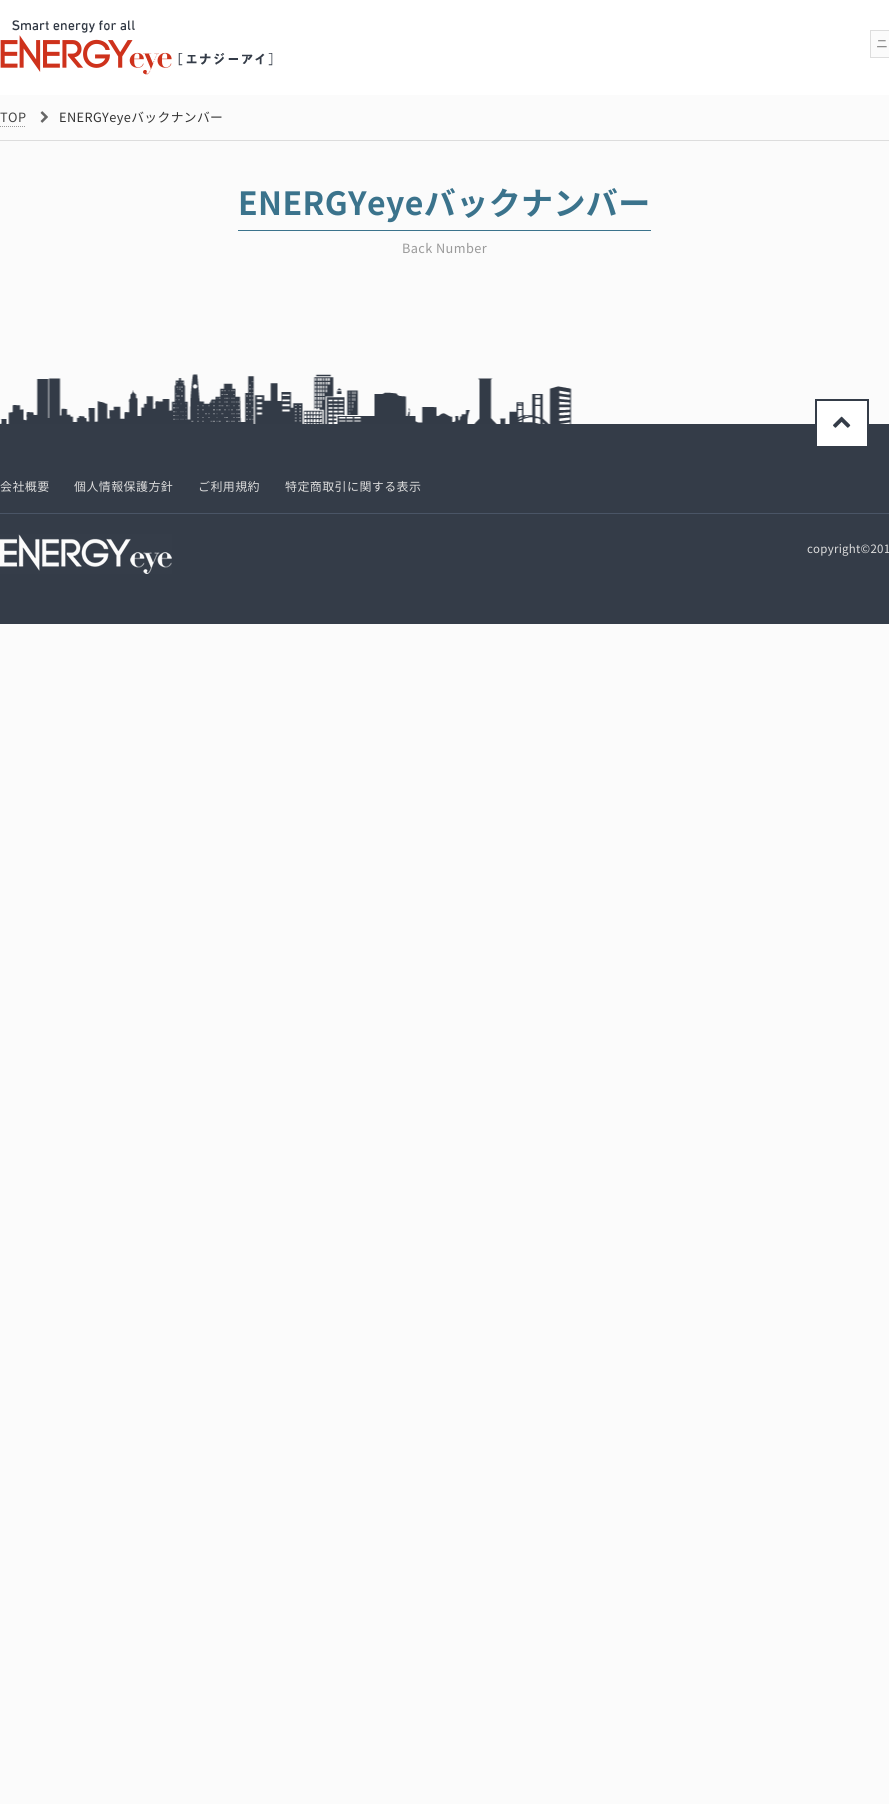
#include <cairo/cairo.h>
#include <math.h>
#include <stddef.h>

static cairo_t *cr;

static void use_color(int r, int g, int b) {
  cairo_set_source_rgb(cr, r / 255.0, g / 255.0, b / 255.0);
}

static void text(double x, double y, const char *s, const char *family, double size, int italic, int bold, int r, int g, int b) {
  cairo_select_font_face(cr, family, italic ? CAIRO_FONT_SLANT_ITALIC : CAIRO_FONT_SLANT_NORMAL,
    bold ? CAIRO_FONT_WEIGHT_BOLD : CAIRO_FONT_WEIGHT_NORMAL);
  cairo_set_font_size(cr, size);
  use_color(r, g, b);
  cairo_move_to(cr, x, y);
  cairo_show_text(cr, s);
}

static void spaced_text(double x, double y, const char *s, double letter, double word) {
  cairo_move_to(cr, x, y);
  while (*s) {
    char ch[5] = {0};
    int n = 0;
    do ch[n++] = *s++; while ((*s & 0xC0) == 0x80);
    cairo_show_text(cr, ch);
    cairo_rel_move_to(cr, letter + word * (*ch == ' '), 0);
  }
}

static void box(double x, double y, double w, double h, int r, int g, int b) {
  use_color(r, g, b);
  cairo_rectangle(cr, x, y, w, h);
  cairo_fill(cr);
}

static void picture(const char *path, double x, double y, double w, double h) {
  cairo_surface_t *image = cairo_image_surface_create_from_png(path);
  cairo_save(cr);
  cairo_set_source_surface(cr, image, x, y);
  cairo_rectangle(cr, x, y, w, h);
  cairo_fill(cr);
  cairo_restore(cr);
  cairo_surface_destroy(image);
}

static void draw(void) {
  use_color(251, 251, 251);
  cairo_paint(cr);
  box(0, 0, 889, 95, 255, 255, 255);
  picture("img_01.png", 0, 20, 273, 55);
  use_color(251, 251, 251);
  cairo_rectangle(cr, 870.5, 30.5, 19, 27);
  cairo_fill_preserve(cr);
  use_color(221, 221, 221);
  cairo_set_line_width(cr, 1);
  cairo_stroke(cr);
  box(0, 140, 889, 1, 221, 221, 221);
  cairo_new_path(cr);
  cairo_move_to(cr, 0, 126.5);
  cairo_line_to(cr, 26, 126.5);
  use_color(153, 153, 153);
  cairo_set_dash(cr, (double[]){1, 1}, 2, 0);
  cairo_stroke(cr);
  picture("img_02.png", 40, 111, 8, 12);
  box(238, 230, 413, 1, 59, 115, 140);
  picture("img_03.png", 0, 374, 572, 50);
  box(0, 424, 889, 200, 52, 60, 72);
  use_color(255, 255, 255);
  cairo_rectangle(cr, 816, 400, 52, 47);
  cairo_fill_preserve(cr);
  use_color(52, 60, 72);
  cairo_set_line_width(cr, 2);
  cairo_set_dash(cr, NULL, 0, 0);
  cairo_stroke(cr);
  picture("img_04.png", 833, 416, 18, 12);
  box(0, 513, 889, 1, 74, 85, 102);
  picture("img_05.png", 0, 534, 172, 40);
  text(876, 48, "ニ", "Noto Sans JP", 12, 0, 0, 117, 117, 117);
  cairo_set_font_size(cr, 12.75);
  use_color(68, 68, 68);
  spaced_text(0, 122, "TOP", 0.4, 0);
  use_color(51, 51, 51);
  spaced_text(59, 122, "ENERGYeyeバックナンバー", 0.4, 0);
  cairo_select_font_face(cr, "Noto Sans JP", CAIRO_FONT_SLANT_NORMAL, CAIRO_FONT_WEIGHT_BOLD);
  cairo_set_font_size(cr, 32);
  use_color(59, 115, 140);
  spaced_text(238, 215, "ENERGYeyeバックナンバー", 0.4, 0);
  cairo_select_font_face(cr, "Noto Sans JP", CAIRO_FONT_SLANT_NORMAL, CAIRO_FONT_WEIGHT_NORMAL);
  cairo_set_font_size(cr, 12.75);
  use_color(153, 153, 153);
  spaced_text(402, 253, "Back Number", 0.4, 0);
  cairo_set_font_size(cr, 12);
  use_color(221, 221, 221);
  spaced_text(0, 491, "会社概要", 0.4, 0);
  spaced_text(74, 491, "個人情報保護方針", 0.4, 0);
  spaced_text(198, 491, "ご利用規約", 0.4, 0);
  spaced_text(285, 491, "特定商取引に関する表示", 0.4, 0);
  cairo_set_font_size(cr, 11.5);
  spaced_text(807, 553, "copyright©201", 0.25, 0);
}

int main(void) {
  cairo_surface_t *surface = cairo_image_surface_create(CAIRO_FORMAT_RGB24, 889, 1804);
  cr = cairo_create(surface);
  cairo_font_options_t *options = cairo_font_options_create();
  cairo_font_options_set_hint_metrics(options, CAIRO_HINT_METRICS_OFF);
  cairo_font_options_set_hint_style(options, CAIRO_HINT_STYLE_NONE);
  cairo_set_font_options(cr, options);
  cairo_set_miter_limit(cr, 4);
  draw();
  cairo_surface_write_to_png(surface, "out.png");
  cairo_font_options_destroy(options);
  cairo_destroy(cr);
  cairo_surface_destroy(surface);
  return 0;
}
